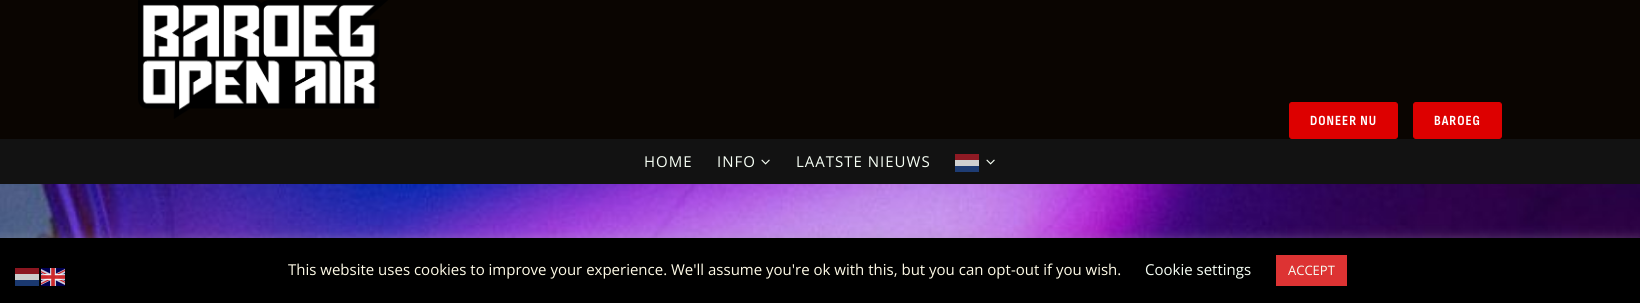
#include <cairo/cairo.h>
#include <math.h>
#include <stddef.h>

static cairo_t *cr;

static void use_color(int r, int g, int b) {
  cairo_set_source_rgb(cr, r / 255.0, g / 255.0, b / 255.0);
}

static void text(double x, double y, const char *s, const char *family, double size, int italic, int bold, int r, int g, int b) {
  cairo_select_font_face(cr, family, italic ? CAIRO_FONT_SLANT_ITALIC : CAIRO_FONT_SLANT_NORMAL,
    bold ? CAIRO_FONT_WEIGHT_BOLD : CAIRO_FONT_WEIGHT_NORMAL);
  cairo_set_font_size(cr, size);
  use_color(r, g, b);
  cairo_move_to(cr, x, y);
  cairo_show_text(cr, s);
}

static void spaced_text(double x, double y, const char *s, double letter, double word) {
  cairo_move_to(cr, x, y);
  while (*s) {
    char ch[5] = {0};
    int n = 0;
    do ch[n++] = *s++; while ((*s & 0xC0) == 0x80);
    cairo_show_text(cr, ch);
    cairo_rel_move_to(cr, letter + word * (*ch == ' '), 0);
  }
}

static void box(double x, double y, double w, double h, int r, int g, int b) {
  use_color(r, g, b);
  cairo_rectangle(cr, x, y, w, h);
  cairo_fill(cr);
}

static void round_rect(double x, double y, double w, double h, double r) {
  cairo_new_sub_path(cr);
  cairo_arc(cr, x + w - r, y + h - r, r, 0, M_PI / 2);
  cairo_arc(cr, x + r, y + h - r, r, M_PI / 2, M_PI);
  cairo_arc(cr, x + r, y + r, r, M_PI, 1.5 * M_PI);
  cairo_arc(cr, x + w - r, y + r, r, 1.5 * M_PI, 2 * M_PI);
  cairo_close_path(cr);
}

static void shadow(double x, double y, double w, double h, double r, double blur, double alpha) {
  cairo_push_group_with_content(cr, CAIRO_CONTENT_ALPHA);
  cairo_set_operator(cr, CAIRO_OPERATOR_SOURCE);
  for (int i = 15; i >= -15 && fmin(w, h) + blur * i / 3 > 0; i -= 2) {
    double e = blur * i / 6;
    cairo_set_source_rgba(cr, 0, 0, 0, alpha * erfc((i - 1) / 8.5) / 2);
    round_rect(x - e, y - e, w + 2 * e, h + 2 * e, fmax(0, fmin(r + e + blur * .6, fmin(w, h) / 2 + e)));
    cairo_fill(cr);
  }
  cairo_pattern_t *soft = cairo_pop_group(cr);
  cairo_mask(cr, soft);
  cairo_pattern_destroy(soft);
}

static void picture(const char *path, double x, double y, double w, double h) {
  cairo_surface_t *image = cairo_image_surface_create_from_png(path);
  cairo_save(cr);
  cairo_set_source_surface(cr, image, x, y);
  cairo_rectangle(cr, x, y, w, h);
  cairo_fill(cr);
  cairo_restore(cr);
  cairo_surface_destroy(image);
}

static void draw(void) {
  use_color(255, 255, 255);
  cairo_paint(cr);
  box(0, 0, 1640, 139, 10, 5, 1);
  picture("img_01.png", 138, 0, 250, 119);
  use_color(221, 0, 0);
  round_rect(1289.5, 102.5, 108, 36, 2.5);
  cairo_fill_preserve(cr);
  cairo_set_line_width(cr, 1);
  cairo_stroke(cr);
  round_rect(1413.5, 102.5, 88, 36, 2.5);
  cairo_fill_preserve(cr);
  cairo_stroke(cr);
  box(0, 139, 1640, 45, 18, 18, 18);
  picture("img_02.png", 761, 159, 9, 6);
  box(955, 154, 24, 6, 143, 26, 36);
  box(955, 160, 24, 6, 208, 208, 208);
  picture("img_02.png", 986, 159, 9, 6);
  box(955, 166, 24, 6, 30, 60, 115);
  picture("img_03.png", 0, 184, 1640, 54);
  use_color(172, 171, 171);
  shadow(0, 237, 1640, 65, 0, 5, 0.3);
  box(0, 238, 1640, 65, 0, 0, 0);
  box(15, 268, 24, 6, 139, 22, 32);
  picture("img_04.png", 41, 268, 24, 18);
  box(15, 274, 24, 6, 204, 204, 204);
  box(15, 280, 24, 6, 26, 56, 111);
  box(1276, 255, 71, 31, 221, 51, 51);
  cairo_select_font_face(cr, "Sofia Sans Condensed", CAIRO_FONT_SLANT_NORMAL, CAIRO_FONT_WEIGHT_BOLD);
  cairo_set_font_size(cr, 14);
  use_color(255, 255, 255);
  spaced_text(1310, 125, "DONEER NU", 1, 0);
  spaced_text(1434, 125, "BAROEG", 1, 0);
  cairo_select_font_face(cr, "Open Sans", CAIRO_FONT_SLANT_NORMAL, CAIRO_FONT_WEIGHT_NORMAL);
  cairo_set_font_size(cr, 15);
  use_color(247, 255, 245);
  spaced_text(644, 167, "HOME", 1, 0);
  spaced_text(717, 167, "INFO", 1, 0);
  spaced_text(796, 167, "LAATSTE NIEUWS", 1, 0);
  text(288, 275, "This website uses cookies to improve your experience. We'll assume you're ok with this, but you can opt-out if you wish.", "Open Sans", 15, 0, 0, 255, 251, 231);
  text(1145, 275, "Cookie settings", "Open Sans", 15, 0, 0, 247, 255, 245);
  text(1288, 275, "ACCEPT", "Open Sans", 13, 0, 0, 247, 255, 245);
}

int main(void) {
  cairo_surface_t *surface = cairo_image_surface_create(CAIRO_FORMAT_RGB24, 1640, 303);
  cr = cairo_create(surface);
  cairo_font_options_t *options = cairo_font_options_create();
  cairo_font_options_set_hint_metrics(options, CAIRO_HINT_METRICS_OFF);
  cairo_font_options_set_hint_style(options, CAIRO_HINT_STYLE_NONE);
  cairo_set_font_options(cr, options);
  cairo_set_miter_limit(cr, 4);
  draw();
  cairo_surface_write_to_png(surface, "out.png");
  cairo_font_options_destroy(options);
  cairo_destroy(cr);
  cairo_surface_destroy(surface);
  return 0;
}
